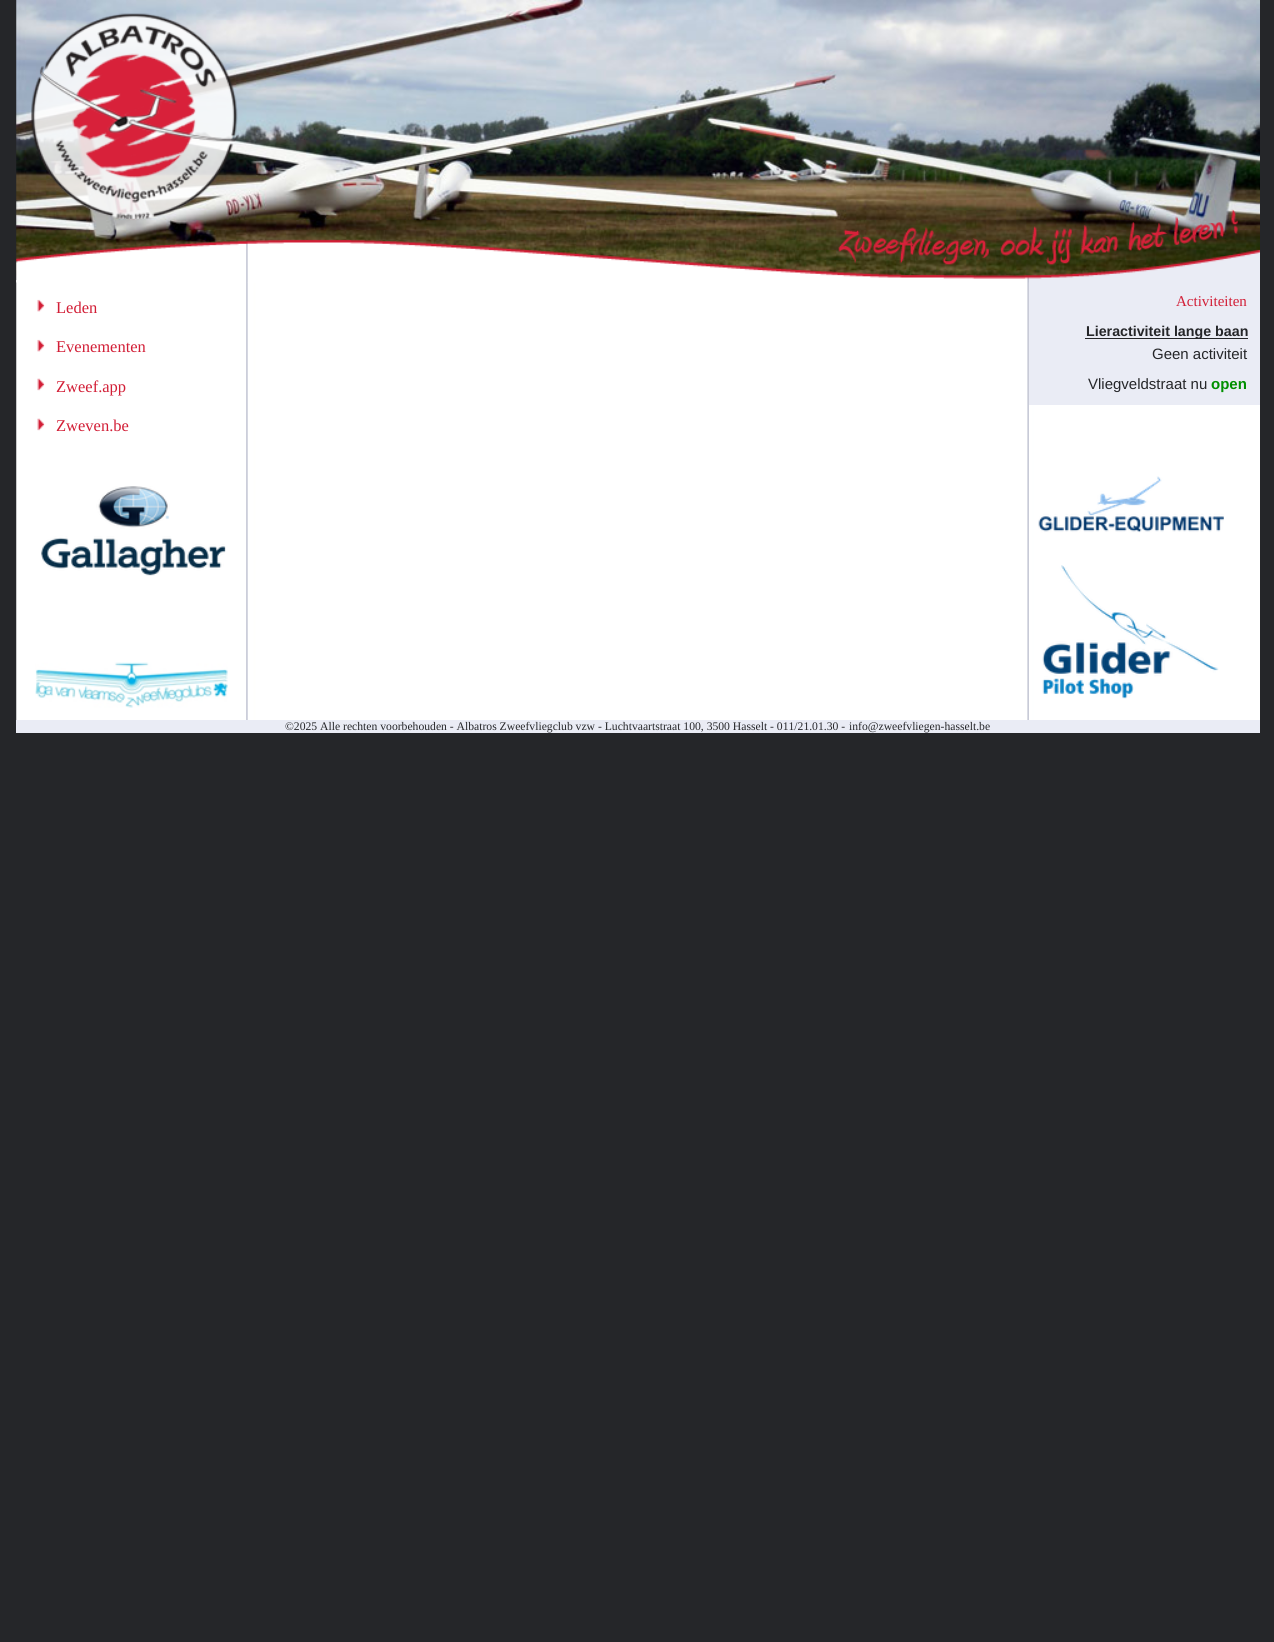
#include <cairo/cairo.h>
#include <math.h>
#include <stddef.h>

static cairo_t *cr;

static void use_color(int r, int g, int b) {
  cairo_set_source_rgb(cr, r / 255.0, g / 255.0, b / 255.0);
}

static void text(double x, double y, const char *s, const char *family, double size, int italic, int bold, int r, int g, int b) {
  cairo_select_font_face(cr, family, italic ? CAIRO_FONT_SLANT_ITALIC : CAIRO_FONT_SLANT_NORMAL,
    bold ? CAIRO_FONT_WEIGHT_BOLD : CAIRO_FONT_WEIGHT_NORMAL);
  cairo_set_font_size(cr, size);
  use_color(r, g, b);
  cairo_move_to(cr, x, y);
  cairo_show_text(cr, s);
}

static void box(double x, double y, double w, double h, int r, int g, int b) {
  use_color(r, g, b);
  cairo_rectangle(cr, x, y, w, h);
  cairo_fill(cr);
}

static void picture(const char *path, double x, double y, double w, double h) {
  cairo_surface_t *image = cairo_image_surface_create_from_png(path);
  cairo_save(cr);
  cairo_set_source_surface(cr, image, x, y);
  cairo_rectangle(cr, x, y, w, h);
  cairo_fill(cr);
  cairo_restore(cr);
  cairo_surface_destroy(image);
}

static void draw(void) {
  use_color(37, 38, 41);
  cairo_paint(cr);
  picture("img_01.png", 16, 0, 1244, 277);
  picture("img_02.png", 31, 13, 208, 206);
  picture("img_05.png", 16, 280, 1244, 440);
  box(1029, 282, 231, 123, 234, 236, 245);
  picture("img_04.png", 16, 239, 1244, 44);
  picture("img_03.png", 838, 209, 400, 56);
  picture("img_06.png", 37, 299, 8, 13);
  picture("img_06.png", 37, 339, 8, 13);
  picture("img_07.png", 37, 378, 8, 13);
  picture("img_07.png", 37, 418, 8, 13);
  picture("img_08.png", 41, 486, 185, 90);
  box(1085, 338, 163, 1, 37, 38, 41);
  picture("img_09.png", 1038, 476, 186, 57);
  picture("img_10.png", 1042, 565, 177, 134);
  box(16, 720, 1244, 13, 234, 236, 245);
  picture("img_11.png", 35, 662, 193, 46);
  text(56, 313, "Leden", "Liberation Serif", 16.5, 0, 0, 210, 30, 54);
  text(56, 352, "Evenementen", "Liberation Serif", 16.5, 0, 0, 210, 30, 54);
  text(56, 392, "Zweef.app", "Liberation Serif", 16.5, 0, 0, 210, 30, 54);
  text(56, 431, "Zweven.be", "Liberation Serif", 16.5, 0, 0, 210, 30, 54);
  text(1176, 306, "Activiteiten", "Liberation Serif", 15, 0, 0, 210, 30, 54);
  text(1086, 336, "Lieractiviteit lange baan", "Liberation Sans", 14.25, 0, 1, 37, 38, 41);
  text(1152, 359, "Geen activiteit", "Liberation Sans", 15, 0, 0, 37, 38, 41);
  text(1088, 389, "Vliegveldstraat nu", "Liberation Sans", 15, 0, 0, 37, 38, 41);
  text(1211, 389, "open", "Liberation Sans", 15, 0, 1, 0, 144, 0);
  text(285, 730, "©2025 Alle rechten voorbehouden - Albatros Zweefvliegclub vzw - Luchtvaartstraat 100, 3500 Hasselt - 011/21.01.30 -", "Liberation Serif", 11.65, 0, 0, 37, 38, 41);
  text(849, 730, "info@zweefvliegen-hasselt.be", "Liberation Serif", 11.65, 0, 0, 37, 38, 41);
}

int main(void) {
  cairo_surface_t *surface = cairo_image_surface_create(CAIRO_FORMAT_RGB24, 1274, 1642);
  cr = cairo_create(surface);
  cairo_font_options_t *options = cairo_font_options_create();
  cairo_font_options_set_hint_metrics(options, CAIRO_HINT_METRICS_OFF);
  cairo_font_options_set_hint_style(options, CAIRO_HINT_STYLE_NONE);
  cairo_set_font_options(cr, options);
  cairo_set_miter_limit(cr, 4);
  draw();
  cairo_surface_write_to_png(surface, "out.png");
  cairo_font_options_destroy(options);
  cairo_destroy(cr);
  cairo_surface_destroy(surface);
  return 0;
}
